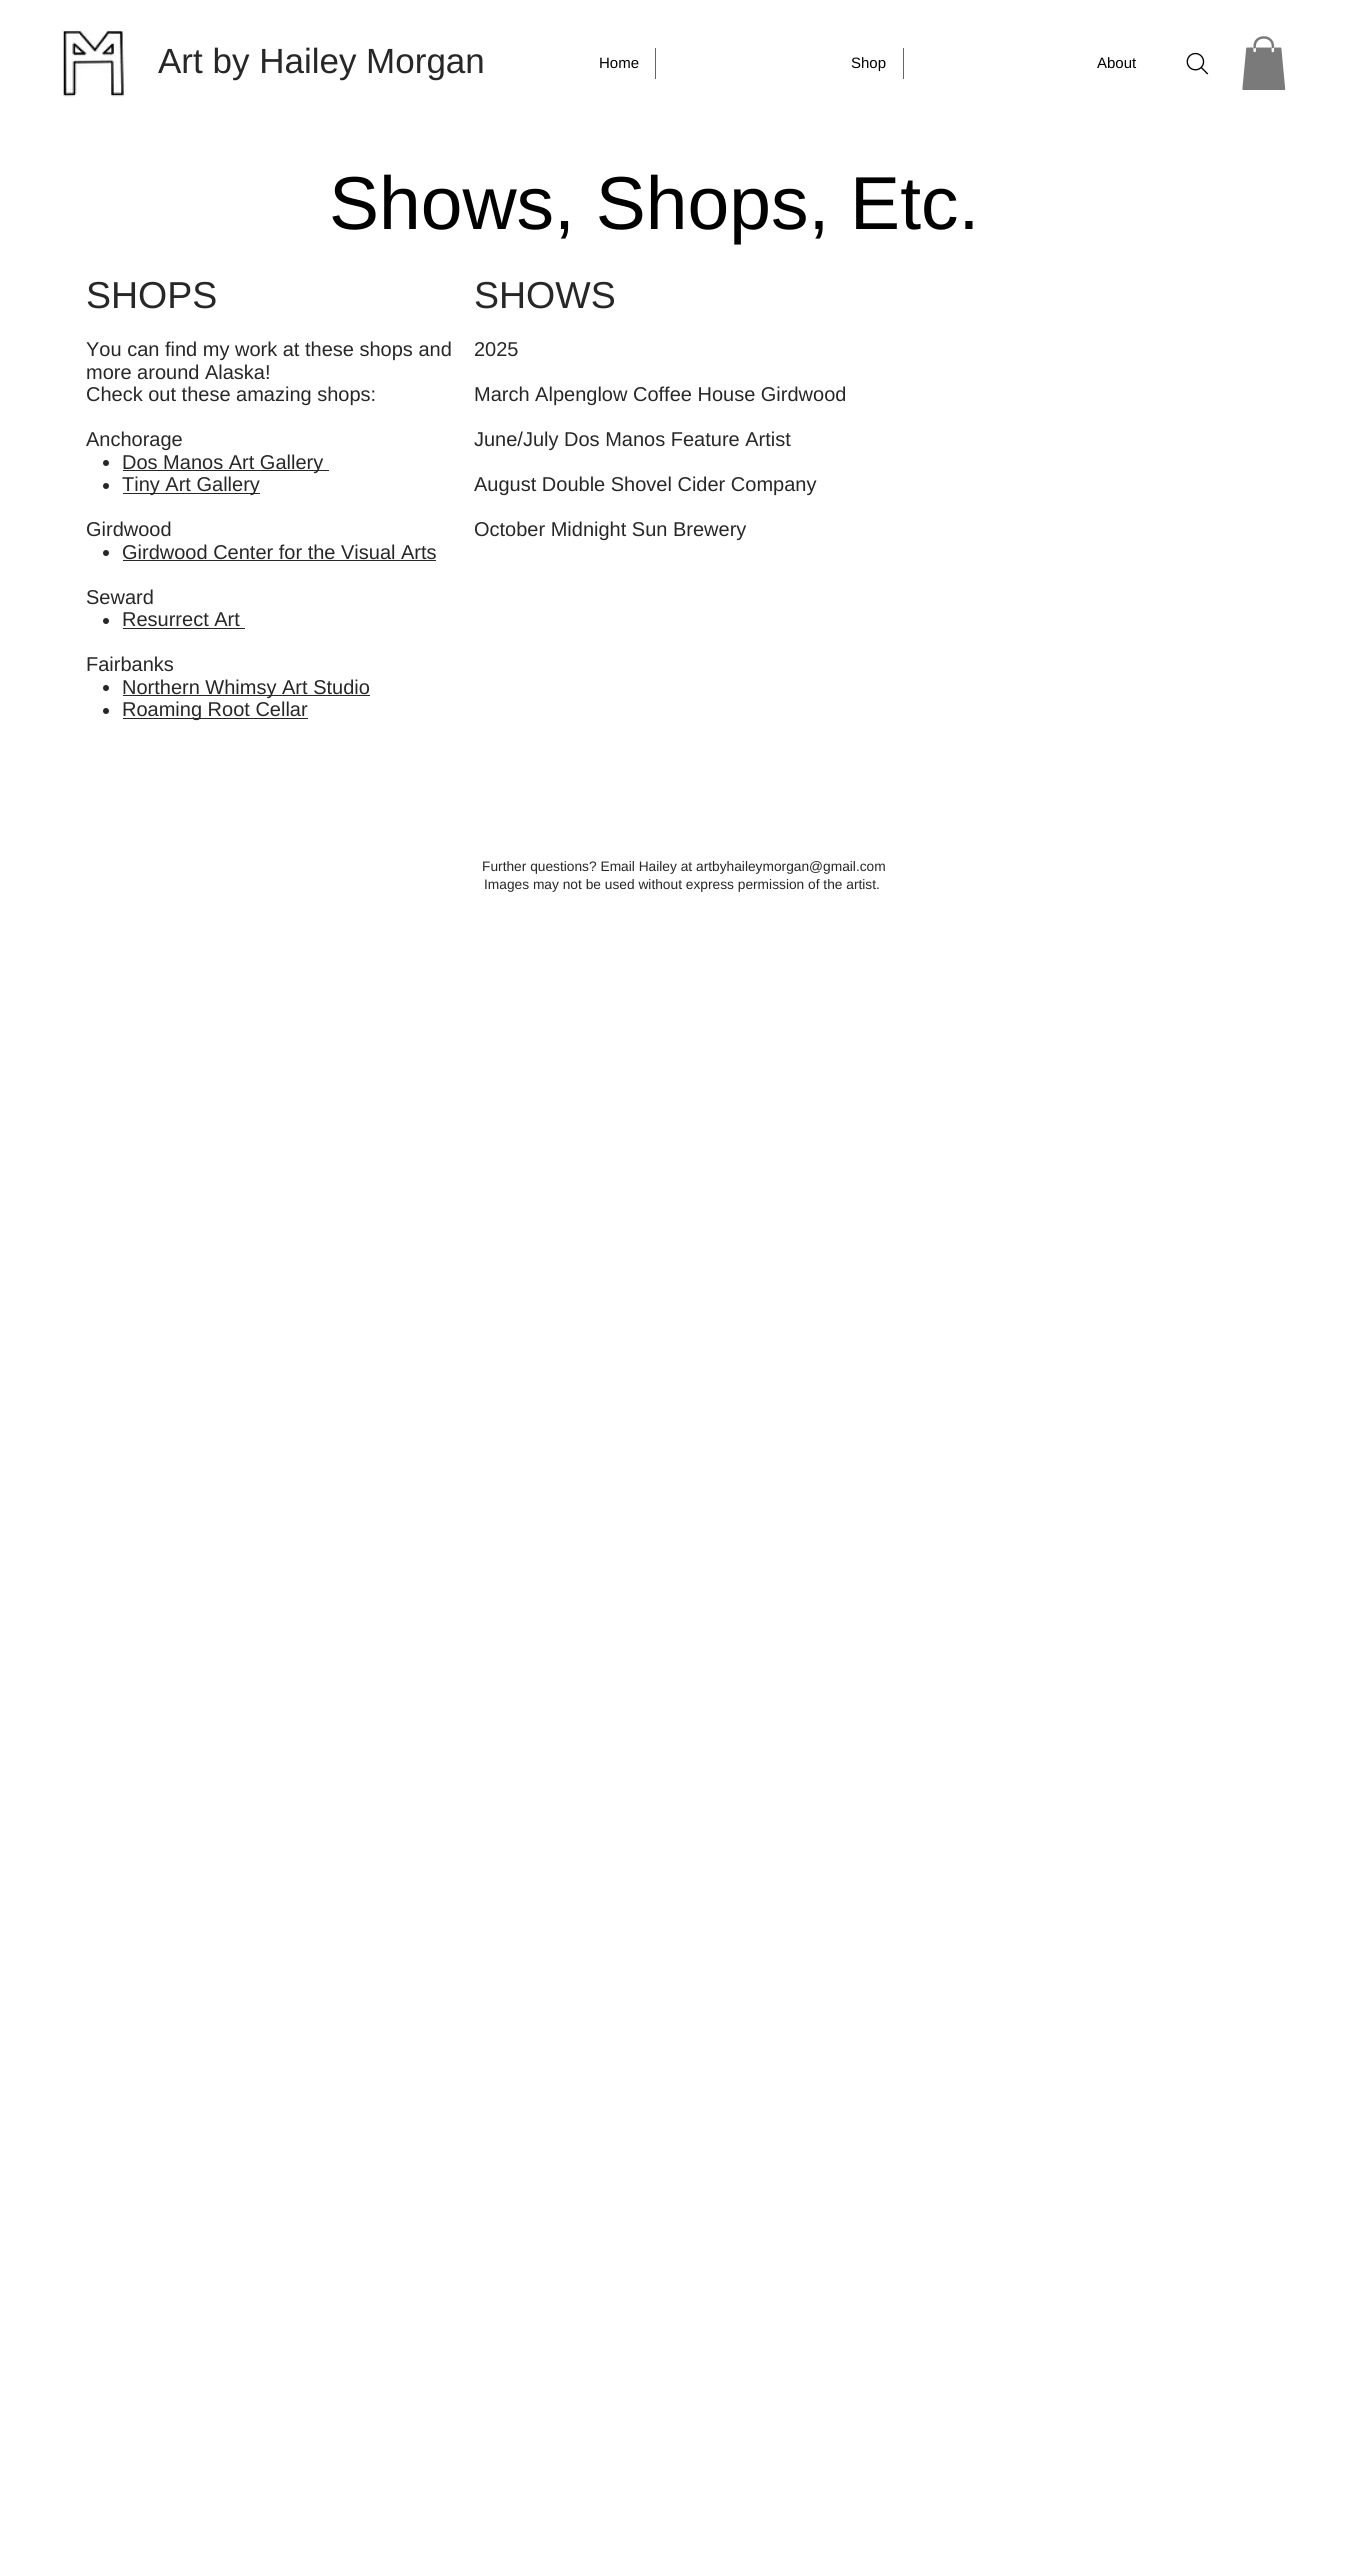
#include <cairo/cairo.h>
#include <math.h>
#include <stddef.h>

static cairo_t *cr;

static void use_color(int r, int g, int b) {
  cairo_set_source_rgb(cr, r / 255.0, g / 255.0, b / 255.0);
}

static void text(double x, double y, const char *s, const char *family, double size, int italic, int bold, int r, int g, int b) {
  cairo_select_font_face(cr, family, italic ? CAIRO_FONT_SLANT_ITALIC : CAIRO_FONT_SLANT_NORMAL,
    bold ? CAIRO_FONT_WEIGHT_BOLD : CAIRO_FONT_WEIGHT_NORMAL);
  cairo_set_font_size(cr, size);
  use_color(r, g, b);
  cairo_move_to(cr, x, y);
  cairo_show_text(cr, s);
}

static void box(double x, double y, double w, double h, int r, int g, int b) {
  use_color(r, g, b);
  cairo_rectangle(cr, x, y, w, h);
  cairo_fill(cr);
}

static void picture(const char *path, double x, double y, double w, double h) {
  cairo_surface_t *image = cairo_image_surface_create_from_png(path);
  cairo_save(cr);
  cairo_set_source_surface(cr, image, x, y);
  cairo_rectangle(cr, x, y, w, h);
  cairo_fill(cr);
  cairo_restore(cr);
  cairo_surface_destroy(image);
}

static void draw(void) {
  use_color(255, 255, 255);
  cairo_paint(cr);
  picture("img_01.png", 61, 29, 64, 68);
  box(655, 48, 1, 31, 102, 102, 102);
  box(903, 48, 1, 31, 102, 102, 102);
  picture("img_02.png", 1186, 52, 23, 23);
  picture("img_03.png", 1242, 36, 44, 54);
  use_color(39, 39, 39);
  cairo_arc(cr, 106, 463, 3, 0, 2 * M_PI);
  cairo_fill(cr);
  box(123, 470, 206, 1, 39, 39, 39);
  cairo_arc(cr, 106, 486, 3, 0, 2 * M_PI);
  cairo_fill(cr);
  box(123, 493, 137, 1, 39, 39, 39);
  cairo_arc(cr, 106, 553, 3, 0, 2 * M_PI);
  cairo_fill(cr);
  box(123, 560, 313, 1, 39, 39, 39);
  cairo_arc(cr, 106, 621, 3, 0, 2 * M_PI);
  cairo_fill(cr);
  box(123, 628, 122, 1, 39, 39, 39);
  cairo_arc(cr, 106, 688, 3, 0, 2 * M_PI);
  cairo_fill(cr);
  box(123, 695, 247, 1, 39, 39, 39);
  cairo_arc(cr, 106, 711, 3, 0, 2 * M_PI);
  cairo_fill(cr);
  box(123, 718, 185, 1, 39, 39, 39);
  text(158, 73, "Art by Hailey Morgan", "Liberation Sans", 35, 0, 0, 39, 39, 39);
  text(599, 68, "Home", "Liberation Sans", 15, 0, 0, 0, 0, 0);
  text(851, 68, "Shop", "Liberation Sans", 15, 0, 0, 0, 0, 0);
  text(1097, 68, "About", "Liberation Sans", 15, 0, 0, 0, 0, 0);
  text(329, 229, "Shows, Shops, Etc.", "Liberation Sans", 75, 0, 0, 0, 0, 0);
  text(86, 308, "SHOPS", "Liberation Sans", 37.5, 0, 0, 39, 39, 39);
  text(86, 356, "You can find my work at these shops and", "Liberation Sans", 20, 0, 0, 39, 39, 39);
  text(86, 379, "more around Alaska!", "Liberation Sans", 20, 0, 0, 39, 39, 39);
  text(86, 401, "Check out these amazing shops:", "Liberation Sans", 20, 0, 0, 39, 39, 39);
  text(86, 446, "Anchorage", "Liberation Sans", 20, 0, 0, 39, 39, 39);
  text(122, 469, "Dos Manos Art Gallery", "Liberation Sans", 20, 0, 0, 39, 39, 39);
  text(122, 491, "Tiny Art Gallery", "Liberation Sans", 20, 0, 0, 39, 39, 39);
  text(86, 536, "Girdwood", "Liberation Sans", 20, 0, 0, 39, 39, 39);
  text(122, 559, "Girdwood Center for the Visual Arts", "Liberation Sans", 20, 0, 0, 39, 39, 39);
  text(86, 604, "Seward", "Liberation Sans", 20, 0, 0, 39, 39, 39);
  text(122, 626, "Resurrect Art", "Liberation Sans", 20, 0, 0, 39, 39, 39);
  text(86, 671, "Fairbanks", "Liberation Sans", 20, 0, 0, 39, 39, 39);
  text(122, 694, "Northern Whimsy Art Studio", "Liberation Sans", 20, 0, 0, 39, 39, 39);
  text(122, 716, "Roaming Root Cellar", "Liberation Sans", 20, 0, 0, 39, 39, 39);
  text(474, 308, "SHOWS", "Liberation Sans", 37.5, 0, 0, 39, 39, 39);
  text(474, 356, "2025", "Liberation Sans", 20, 0, 0, 39, 39, 39);
  text(474, 401, "March Alpenglow Coffee House Girdwood", "Liberation Sans", 20, 0, 0, 39, 39, 39);
  text(474, 446, "June/July Dos Manos Feature Artist", "Liberation Sans", 20, 0, 0, 39, 39, 39);
  text(474, 491, "August Double Shovel Cider Company", "Liberation Sans", 20, 0, 0, 39, 39, 39);
  text(474, 536, "October Midnight Sun Brewery", "Liberation Sans", 20, 0, 0, 39, 39, 39);
  text(482, 871, "Further questions? Email Hailey at artbyhaileymorgan@gmail.com", "Liberation Sans", 13.75, 0, 0, 39, 39, 39);
  text(484, 889, "Images may not be used without express permission of the artist.", "Liberation Sans", 13.75, 0, 0, 39, 39, 39);
}

int main(void) {
  cairo_surface_t *surface = cairo_image_surface_create(CAIRO_FORMAT_RGB24, 1347, 2561);
  cr = cairo_create(surface);
  cairo_font_options_t *options = cairo_font_options_create();
  cairo_font_options_set_hint_metrics(options, CAIRO_HINT_METRICS_OFF);
  cairo_font_options_set_hint_style(options, CAIRO_HINT_STYLE_NONE);
  cairo_set_font_options(cr, options);
  cairo_set_miter_limit(cr, 4);
  draw();
  cairo_surface_write_to_png(surface, "out.png");
  cairo_font_options_destroy(options);
  cairo_destroy(cr);
  cairo_surface_destroy(surface);
  return 0;
}
